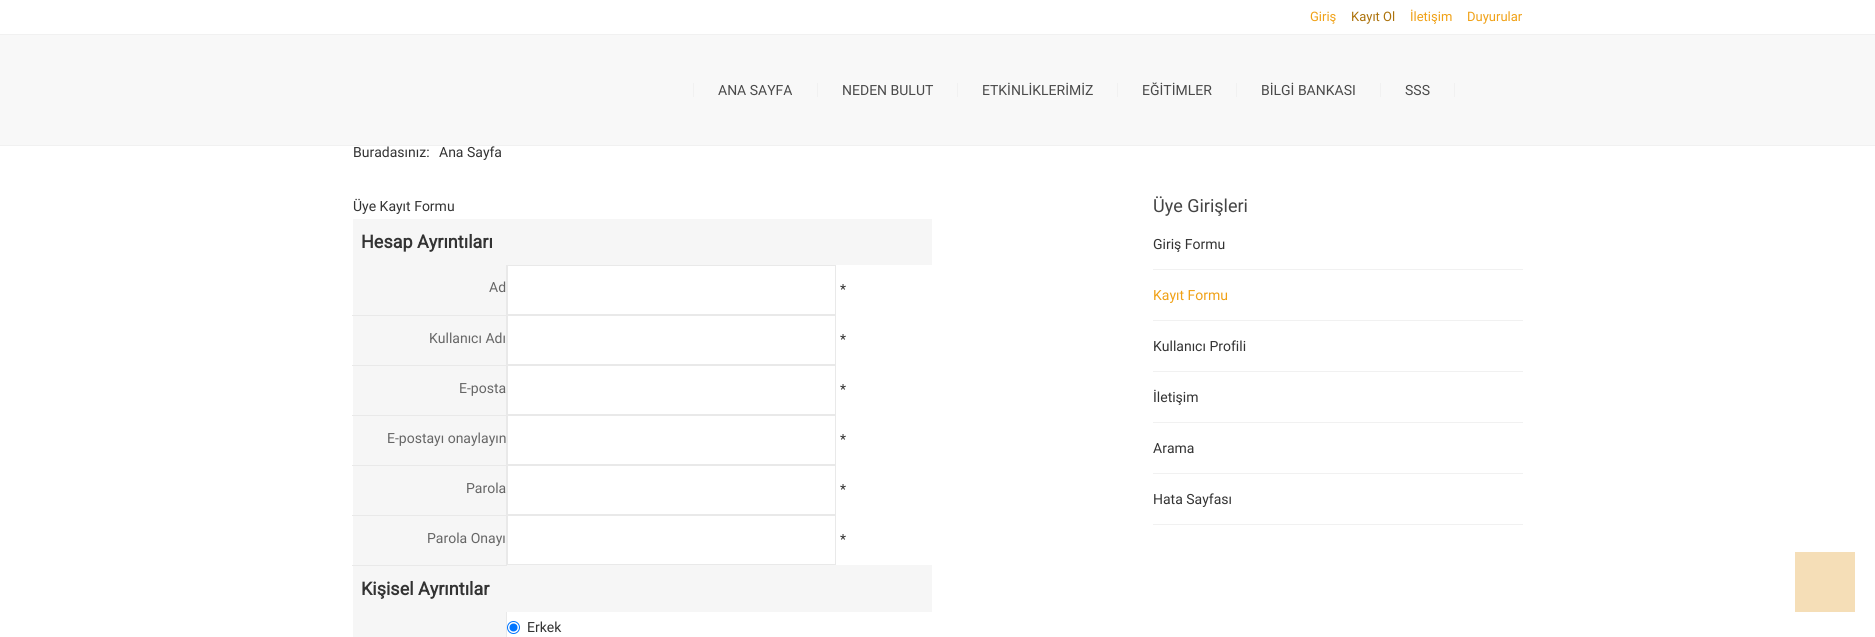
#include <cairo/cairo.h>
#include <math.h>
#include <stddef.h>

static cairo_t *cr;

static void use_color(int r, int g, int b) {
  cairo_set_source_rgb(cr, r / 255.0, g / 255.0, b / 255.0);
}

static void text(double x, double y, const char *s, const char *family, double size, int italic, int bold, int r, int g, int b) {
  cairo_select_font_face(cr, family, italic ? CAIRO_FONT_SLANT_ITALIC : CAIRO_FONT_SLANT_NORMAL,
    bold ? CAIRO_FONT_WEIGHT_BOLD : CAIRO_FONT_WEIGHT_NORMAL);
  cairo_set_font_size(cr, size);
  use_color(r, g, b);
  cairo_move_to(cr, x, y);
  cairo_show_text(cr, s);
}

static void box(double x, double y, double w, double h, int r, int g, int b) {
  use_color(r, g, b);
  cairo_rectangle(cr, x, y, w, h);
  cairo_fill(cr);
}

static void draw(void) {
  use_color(255, 255, 255);
  cairo_paint(cr);
  box(0, 34, 1875, 1, 241, 241, 241);
  box(0, 35, 1875, 110, 248, 248, 248);
  box(0, 145, 1875, 1, 241, 241, 241);
  box(693, 83, 1, 14, 241, 241, 241);
  box(817, 83, 1, 14, 241, 241, 241);
  box(957, 83, 1, 14, 241, 241, 241);
  box(1117, 83, 1, 14, 241, 241, 241);
  box(1236, 83, 1, 14, 241, 241, 241);
  box(1380, 83, 1, 14, 241, 241, 241);
  box(1454, 83, 1, 14, 241, 241, 241);
  box(353, 219, 579, 46, 246, 246, 246);
  box(353, 265, 153, 50, 246, 246, 246);
  box(353, 565, 579, 47, 246, 246, 246);
  box(506, 265, 1, 301, 233, 233, 233);
  box(352, 315, 155, 1, 233, 233, 233);
  cairo_rectangle(cr, 507.5, 265.5, 328, 49);
  cairo_set_line_width(cr, 1);
  cairo_stroke(cr);
  box(353, 316, 153, 49, 246, 246, 246);
  box(352, 365, 155, 1, 233, 233, 233);
  cairo_rectangle(cr, 507.5, 315.5, 328, 49);
  cairo_stroke(cr);
  box(353, 366, 153, 49, 246, 246, 246);
  box(352, 415, 155, 1, 233, 233, 233);
  cairo_rectangle(cr, 507.5, 365.5, 328, 49);
  cairo_stroke(cr);
  box(353, 416, 153, 49, 246, 246, 246);
  box(352, 465, 155, 1, 233, 233, 233);
  cairo_rectangle(cr, 507.5, 415.5, 328, 49);
  cairo_stroke(cr);
  box(353, 466, 153, 49, 246, 246, 246);
  box(352, 515, 155, 1, 233, 233, 233);
  cairo_rectangle(cr, 507.5, 465.5, 328, 49);
  cairo_stroke(cr);
  box(353, 516, 153, 49, 246, 246, 246);
  box(352, 565, 155, 1, 233, 233, 233);
  cairo_rectangle(cr, 507.5, 515.5, 328, 49);
  cairo_stroke(cr);
  box(353, 612, 153, 25, 246, 246, 246);
  box(506, 612, 1, 25, 233, 233, 233);
  cairo_arc(cr, 513.5, 627.5, 6, 0, 2 * M_PI);
  use_color(0, 117, 255);
  cairo_stroke(cr);
  cairo_arc(cr, 513.5, 627.5, 4, 0, 2 * M_PI);
  cairo_fill(cr);
  box(1153, 269, 370, 1, 241, 241, 241);
  box(1153, 320, 370, 1, 241, 241, 241);
  box(1153, 371, 370, 1, 241, 241, 241);
  box(1153, 422, 370, 1, 241, 241, 241);
  box(1153, 473, 370, 1, 241, 241, 241);
  box(1153, 524, 370, 1, 241, 241, 241);
  box(1795, 552, 60, 60, 245, 222, 183);
  text(1310, 21, "Giriş", "Roboto", 13, 0, 0, 240, 161, 22);
  text(1351, 21, "Kayıt Ol", "Roboto", 13, 0, 0, 172, 114, 11);
  text(1410, 21, "İletişim", "Roboto", 13, 0, 0, 240, 161, 22);
  text(1467, 21, "Duyurular", "Roboto", 13, 0, 0, 240, 161, 22);
  text(718, 95, "ANA SAYFA", "Roboto", 14, 0, 0, 74, 74, 74);
  text(842, 95, "NEDEN BULUT", "Roboto", 14, 0, 0, 74, 74, 74);
  text(982, 95, "ETKİNLİKLERİMİZ", "Roboto", 14, 0, 0, 74, 74, 74);
  text(1142, 95, "EĞİTİMLER", "Roboto", 14, 0, 0, 74, 74, 74);
  text(1261, 95, "BİLGİ BANKASI", "Roboto", 14, 0, 0, 74, 74, 74);
  text(1405, 95, "SSS", "Roboto", 14, 0, 0, 74, 74, 74);
  text(353, 157, "Buradasınız:", "Roboto", 14, 0, 0, 51, 51, 51);
  text(439, 157, "Ana Sayfa", "Roboto", 14, 0, 0, 51, 51, 51);
  text(353, 211, "Üye Kayıt Formu", "Roboto", 14, 0, 0, 51, 51, 51);
  text(361, 248, "Hesap Ayrıntıları", "Roboto", 18, 0, 1, 51, 51, 51);
  text(489, 292, "Ad", "Roboto", 14, 0, 0, 102, 102, 102);
  text(840, 294, "*", "Roboto", 14, 0, 0, 51, 51, 51);
  text(429, 343, "Kullanıcı Adı", "Roboto", 14, 0, 0, 102, 102, 102);
  text(840, 344, "*", "Roboto", 14, 0, 0, 51, 51, 51);
  text(459, 393, "E-posta", "Roboto", 14, 0, 0, 102, 102, 102);
  text(840, 394, "*", "Roboto", 14, 0, 0, 51, 51, 51);
  text(387, 443, "E-postayı onaylayın", "Roboto", 14, 0, 0, 102, 102, 102);
  text(840, 444, "*", "Roboto", 14, 0, 0, 51, 51, 51);
  text(466, 493, "Parola", "Roboto", 14, 0, 0, 102, 102, 102);
  text(840, 494, "*", "Roboto", 14, 0, 0, 51, 51, 51);
  text(427, 543, "Parola Onayı", "Roboto", 14, 0, 0, 102, 102, 102);
  text(840, 544, "*", "Roboto", 14, 0, 0, 51, 51, 51);
  text(361, 595, "Kişisel Ayrıntılar", "Roboto", 18, 0, 1, 51, 51, 51);
  text(527, 632, "Erkek", "Roboto", 14, 0, 0, 51, 51, 51);
  text(1153, 212, "Üye Girişleri", "Roboto", 18, 0, 0, 68, 68, 68);
  text(1153, 249, "Giriş Formu", "Roboto", 14, 0, 0, 51, 51, 51);
  text(1153, 300, "Kayıt Formu", "Roboto", 14, 0, 0, 240, 161, 22);
  text(1153, 351, "Kullanıcı Profili", "Roboto", 14, 0, 0, 51, 51, 51);
  text(1153, 402, "İletişim", "Roboto", 14, 0, 0, 51, 51, 51);
  text(1153, 453, "Arama", "Roboto", 14, 0, 0, 51, 51, 51);
  text(1153, 504, "Hata Sayfası", "Roboto", 14, 0, 0, 51, 51, 51);
}

int main(void) {
  cairo_surface_t *surface = cairo_image_surface_create(CAIRO_FORMAT_RGB24, 1875, 637);
  cr = cairo_create(surface);
  cairo_font_options_t *options = cairo_font_options_create();
  cairo_font_options_set_hint_metrics(options, CAIRO_HINT_METRICS_OFF);
  cairo_font_options_set_hint_style(options, CAIRO_HINT_STYLE_NONE);
  cairo_set_font_options(cr, options);
  cairo_set_miter_limit(cr, 4);
  draw();
  cairo_surface_write_to_png(surface, "out.png");
  cairo_font_options_destroy(options);
  cairo_destroy(cr);
  cairo_surface_destroy(surface);
  return 0;
}
